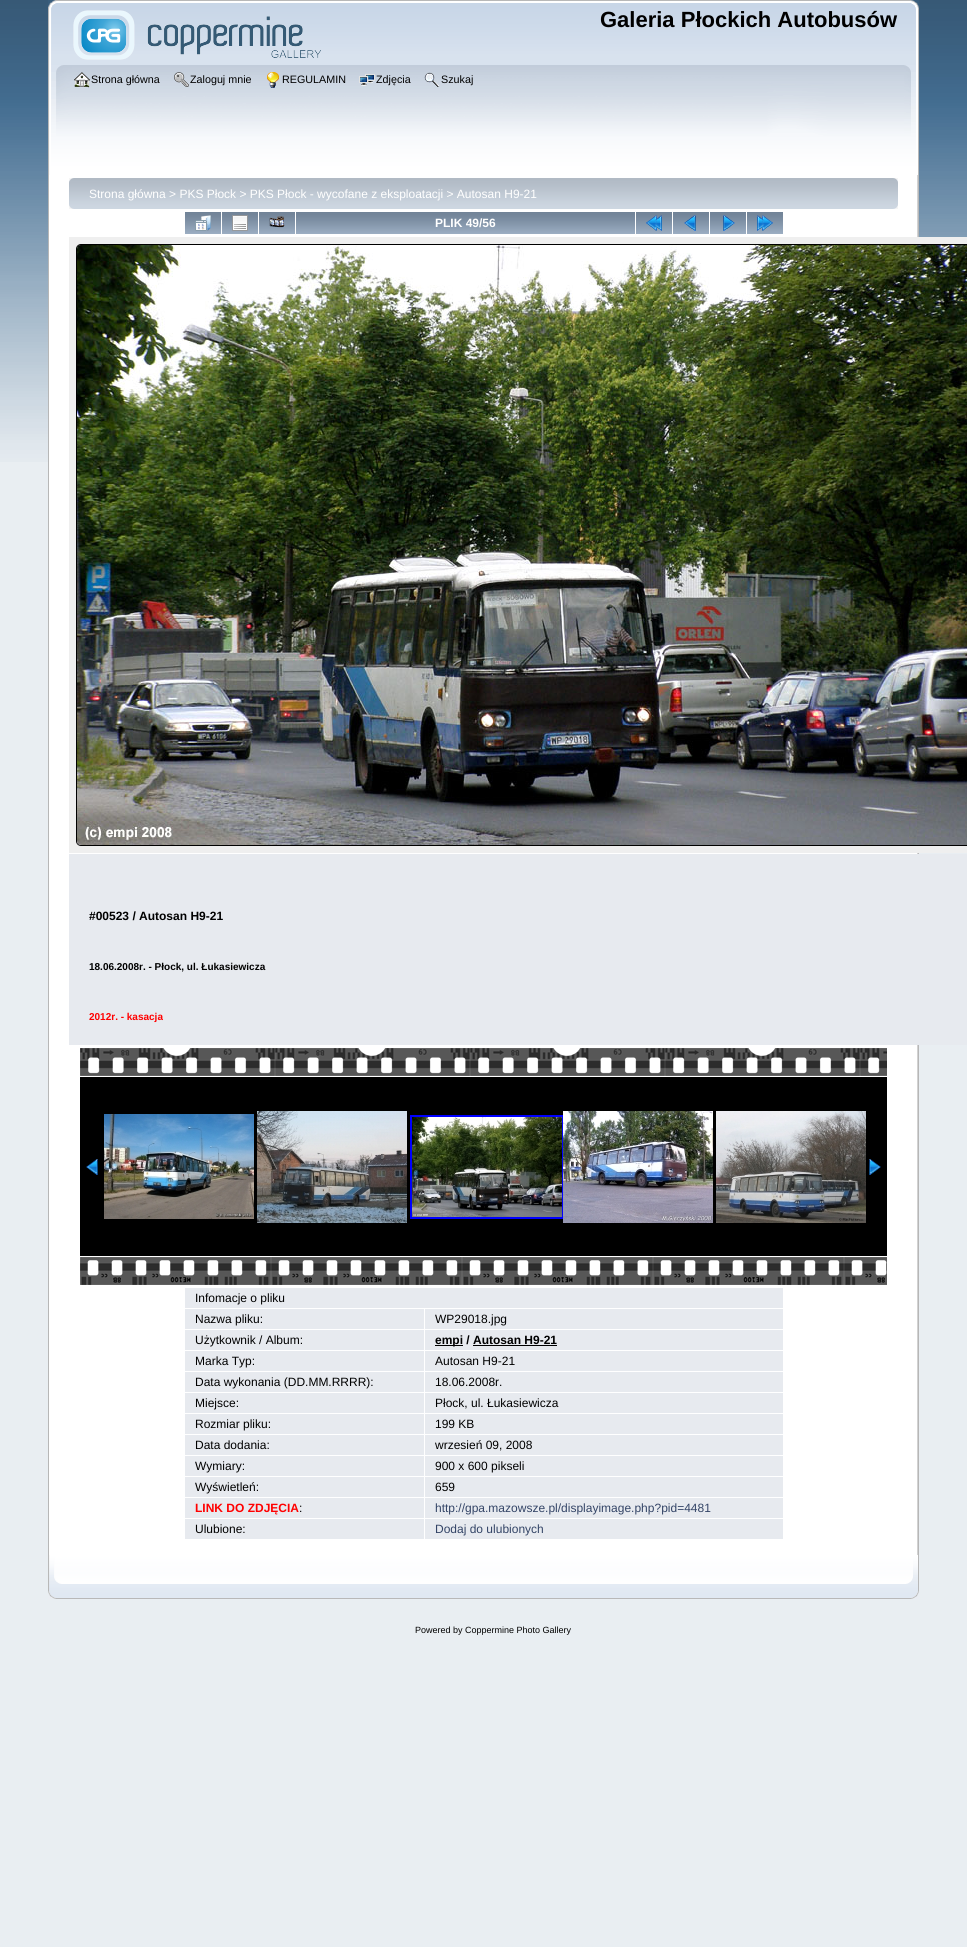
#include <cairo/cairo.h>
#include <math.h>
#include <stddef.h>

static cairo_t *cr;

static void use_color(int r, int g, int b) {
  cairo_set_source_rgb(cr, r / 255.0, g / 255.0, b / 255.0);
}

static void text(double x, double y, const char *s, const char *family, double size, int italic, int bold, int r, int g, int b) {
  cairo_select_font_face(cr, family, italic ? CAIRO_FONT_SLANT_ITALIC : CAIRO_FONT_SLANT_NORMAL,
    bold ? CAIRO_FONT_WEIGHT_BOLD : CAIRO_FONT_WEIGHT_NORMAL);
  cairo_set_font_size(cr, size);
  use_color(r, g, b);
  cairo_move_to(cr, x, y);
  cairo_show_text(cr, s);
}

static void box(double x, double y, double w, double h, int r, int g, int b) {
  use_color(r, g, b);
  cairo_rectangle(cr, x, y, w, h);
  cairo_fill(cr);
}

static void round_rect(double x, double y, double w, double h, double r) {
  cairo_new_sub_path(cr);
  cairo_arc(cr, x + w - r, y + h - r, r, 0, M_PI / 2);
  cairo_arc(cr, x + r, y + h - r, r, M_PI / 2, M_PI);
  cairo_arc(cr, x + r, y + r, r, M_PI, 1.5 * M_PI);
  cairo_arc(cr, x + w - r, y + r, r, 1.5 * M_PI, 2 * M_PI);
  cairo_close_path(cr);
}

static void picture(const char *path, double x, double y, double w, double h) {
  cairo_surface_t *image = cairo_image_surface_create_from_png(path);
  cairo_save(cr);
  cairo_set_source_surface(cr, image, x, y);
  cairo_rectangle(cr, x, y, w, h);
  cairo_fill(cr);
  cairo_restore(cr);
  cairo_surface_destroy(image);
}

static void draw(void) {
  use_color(233, 238, 242);
  cairo_paint(cr);
  picture("img_01.png", 0, 0, 967, 462);
  picture("img_02.png", 48, 0, 863, 65);
  picture("img_03.png", 911, 0, 8, 65);
  picture("img_04.png", 73, 10, 248, 50);
  picture("img_05.png", 48, 65, 856, 110);
  picture("img_06.png", 904, 65, 15, 110);
  picture("img_07.png", 74, 72, 16, 16);
  picture("img_08.png", 174, 72, 15, 15);
  picture("img_09.png", 267, 72, 12, 16);
  picture("img_10.png", 359, 74, 16, 12);
  picture("img_11.png", 424, 72, 16, 15);
  box(49, 175, 868, 1380, 255, 255, 255);
  box(48, 175, 1, 1380, 183, 183, 183);
  picture("img_12.png", 917, 175, 2, 1380);
  picture("img_13.png", 69, 178, 824, 31);
  picture("img_14.png", 893, 178, 5, 31);
  picture("img_15.png", 185, 212, 36, 22);
  picture("img_16.png", 195, 215, 16, 16);
  picture("img_15.png", 222, 212, 36, 22);
  picture("img_17.png", 232, 215, 16, 16);
  picture("img_15.png", 259, 212, 36, 22);
  picture("img_18.png", 269, 216, 16, 12);
  picture("img_19.png", 296, 212, 339, 22);
  picture("img_15.png", 636, 212, 36, 22);
  picture("img_20.png", 646, 215, 16, 16);
  picture("img_15.png", 673, 212, 36, 22);
  picture("img_21.png", 684, 215, 12, 16);
  picture("img_15.png", 710, 212, 36, 22);
  picture("img_22.png", 723, 215, 12, 16);
  picture("img_15.png", 747, 212, 36, 22);
  picture("img_23.png", 757, 215, 16, 16);
  box(69, 237, 898, 616, 239, 239, 239);
  round_rect(76.5, 244.5, 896, 601, 4.5);
  use_color(0, 0, 0);
  cairo_set_line_width(cr, 1);
  cairo_stroke(cr);
  picture("img_24.png", 77, 245, 890, 600);
  box(69, 854, 898, 191, 231, 234, 239);
  picture("img_25.png", 80, 1048, 807, 28);
  box(80, 1077, 807, 179, 0, 0, 0);
  picture("img_26.png", 86, 1159, 12, 16);
  picture("img_27.png", 104, 1114, 150, 105);
  picture("img_28.png", 257, 1111, 150, 112);
  cairo_rectangle(cr, 411, 1116, 152, 102);
  use_color(0, 0, 255);
  cairo_set_line_width(cr, 2);
  cairo_stroke(cr);
  picture("img_29.png", 412, 1117, 150, 100);
  picture("img_30.png", 563, 1111, 150, 112);
  picture("img_31.png", 716, 1111, 150, 112);
  picture("img_32.png", 869, 1159, 12, 16);
  picture("img_33.png", 80, 1257, 807, 28);
  box(185, 1288, 598, 20, 231, 234, 239);
  box(185, 1309, 239, 20, 231, 234, 239);
  box(425, 1309, 358, 20, 231, 234, 239);
  box(185, 1330, 239, 20, 231, 234, 239);
  box(425, 1330, 358, 20, 231, 234, 239);
  box(435, 1345, 28, 1, 0, 0, 0);
  box(473, 1345, 84, 1, 0, 0, 0);
  box(185, 1351, 239, 20, 231, 234, 239);
  box(425, 1351, 358, 20, 231, 234, 239);
  box(185, 1372, 239, 20, 231, 234, 239);
  box(425, 1372, 358, 20, 231, 234, 239);
  box(185, 1393, 239, 20, 231, 234, 239);
  box(425, 1393, 358, 20, 231, 234, 239);
  box(185, 1414, 239, 20, 231, 234, 239);
  box(425, 1414, 358, 20, 231, 234, 239);
  box(185, 1435, 239, 20, 231, 234, 239);
  box(425, 1435, 358, 20, 231, 234, 239);
  box(185, 1456, 239, 20, 231, 234, 239);
  box(425, 1456, 358, 20, 231, 234, 239);
  box(185, 1477, 239, 20, 231, 234, 239);
  box(425, 1477, 358, 20, 231, 234, 239);
  box(185, 1498, 239, 20, 231, 234, 239);
  box(425, 1498, 358, 20, 231, 234, 239);
  box(185, 1519, 239, 20, 231, 234, 239);
  box(425, 1519, 358, 20, 231, 234, 239);
  picture("img_34.png", 48, 1555, 858, 44);
  picture("img_35.png", 906, 1555, 13, 44);
  text(600, 27, "Galeria Płockich Autobusów", "Liberation Sans", 22, 0, 1, 0, 0, 0);
  text(91, 83, "Strona główna", "Liberation Sans", 10.75, 0, 0, 0, 0, 0);
  text(190, 83, "Zaloguj mnie", "Liberation Sans", 10.75, 0, 0, 0, 0, 0);
  text(282, 83, "REGULAMIN", "Liberation Sans", 10.75, 0, 0, 0, 0, 0);
  text(376, 83, "Zdjęcia", "Liberation Sans", 10.75, 0, 0, 0, 0, 0);
  text(441, 83, "Szukaj", "Liberation Sans", 10.75, 0, 0, 0, 0, 0);
  text(89, 198, "Strona główna > PKS Płock > PKS Płock - wycofane z eksploatacji > Autosan H9-21", "Liberation Sans", 12, 0, 0, 255, 255, 255);
  text(435, 227, "PLIK 49/56", "Liberation Sans", 12, 0, 1, 255, 255, 255);
  text(89, 920, "#00523 / Autosan H9-21", "Liberation Sans", 12, 0, 1, 0, 0, 0);
  text(89, 970, "18.06.2008r. - Płock, ul. Łukasiewicza", "Liberation Sans", 10, 0, 1, 0, 0, 0);
  text(89, 1020, "2012r. - kasacja", "Liberation Sans", 10, 0, 1, 255, 0, 0);
  text(195, 1302, "Infomacje o pliku", "Liberation Sans", 12, 0, 0, 0, 0, 0);
  text(195, 1323, "Nazwa pliku:", "Liberation Sans", 12, 0, 0, 0, 0, 0);
  text(435, 1323, "WP29018.jpg", "Liberation Sans", 12, 0, 0, 0, 0, 0);
  text(195, 1344, "Użytkownik / Album:", "Liberation Sans", 12, 0, 0, 0, 0, 0);
  text(435, 1344, "empi / Autosan H9-21", "Liberation Sans", 12, 0, 1, 0, 0, 0);
  text(195, 1365, "Marka Typ:", "Liberation Sans", 12, 0, 0, 0, 0, 0);
  text(435, 1365, "Autosan H9-21", "Liberation Sans", 12, 0, 0, 0, 0, 0);
  text(195, 1386, "Data wykonania (DD.MM.RRRR):", "Liberation Sans", 12, 0, 0, 0, 0, 0);
  text(435, 1386, "18.06.2008r.", "Liberation Sans", 12, 0, 0, 0, 0, 0);
  text(195, 1407, "Miejsce:", "Liberation Sans", 12, 0, 0, 0, 0, 0);
  text(435, 1407, "Płock, ul. Łukasiewicza", "Liberation Sans", 12, 0, 0, 0, 0, 0);
  text(195, 1428, "Rozmiar pliku:", "Liberation Sans", 12, 0, 0, 0, 0, 0);
  text(435, 1428, "199 KB", "Liberation Sans", 12, 0, 0, 0, 0, 0);
  text(195, 1449, "Data dodania:", "Liberation Sans", 12, 0, 0, 0, 0, 0);
  text(435, 1449, "wrzesień 09, 2008", "Liberation Sans", 12, 0, 0, 0, 0, 0);
  text(195, 1470, "Wymiary:", "Liberation Sans", 12, 0, 0, 0, 0, 0);
  text(435, 1470, "900 x 600 pikseli", "Liberation Sans", 12, 0, 0, 0, 0, 0);
  text(195, 1491, "Wyświetleń:", "Liberation Sans", 12, 0, 0, 0, 0, 0);
  text(435, 1491, "659", "Liberation Sans", 12, 0, 0, 0, 0, 0);
  text(195, 1512, "LINK DO ZDJĘCIA", "Liberation Sans", 12, 0, 1, 255, 0, 0);
  text(299, 1512, ":", "Liberation Sans", 12, 0, 0, 0, 0, 0);
  text(435, 1512, "http://gpa.mazowsze.pl/displayimage.php?pid=4481", "Liberation Sans", 12, 0, 0, 51, 68, 102);
  text(195, 1533, "Ulubione:", "Liberation Sans", 12, 0, 0, 0, 0, 0);
  text(435, 1533, "Dodaj do ulubionych", "Liberation Sans", 12, 0, 0, 51, 68, 102);
  text(415, 1633, "Powered by Coppermine Photo Gallery", "Liberation Sans", 9, 0, 0, 0, 0, 0);
}

int main(void) {
  cairo_surface_t *surface = cairo_image_surface_create(CAIRO_FORMAT_RGB24, 967, 1947);
  cr = cairo_create(surface);
  cairo_font_options_t *options = cairo_font_options_create();
  cairo_font_options_set_hint_metrics(options, CAIRO_HINT_METRICS_OFF);
  cairo_font_options_set_hint_style(options, CAIRO_HINT_STYLE_NONE);
  cairo_set_font_options(cr, options);
  cairo_set_miter_limit(cr, 4);
  draw();
  cairo_surface_write_to_png(surface, "out.png");
  cairo_font_options_destroy(options);
  cairo_destroy(cr);
  cairo_surface_destroy(surface);
  return 0;
}
